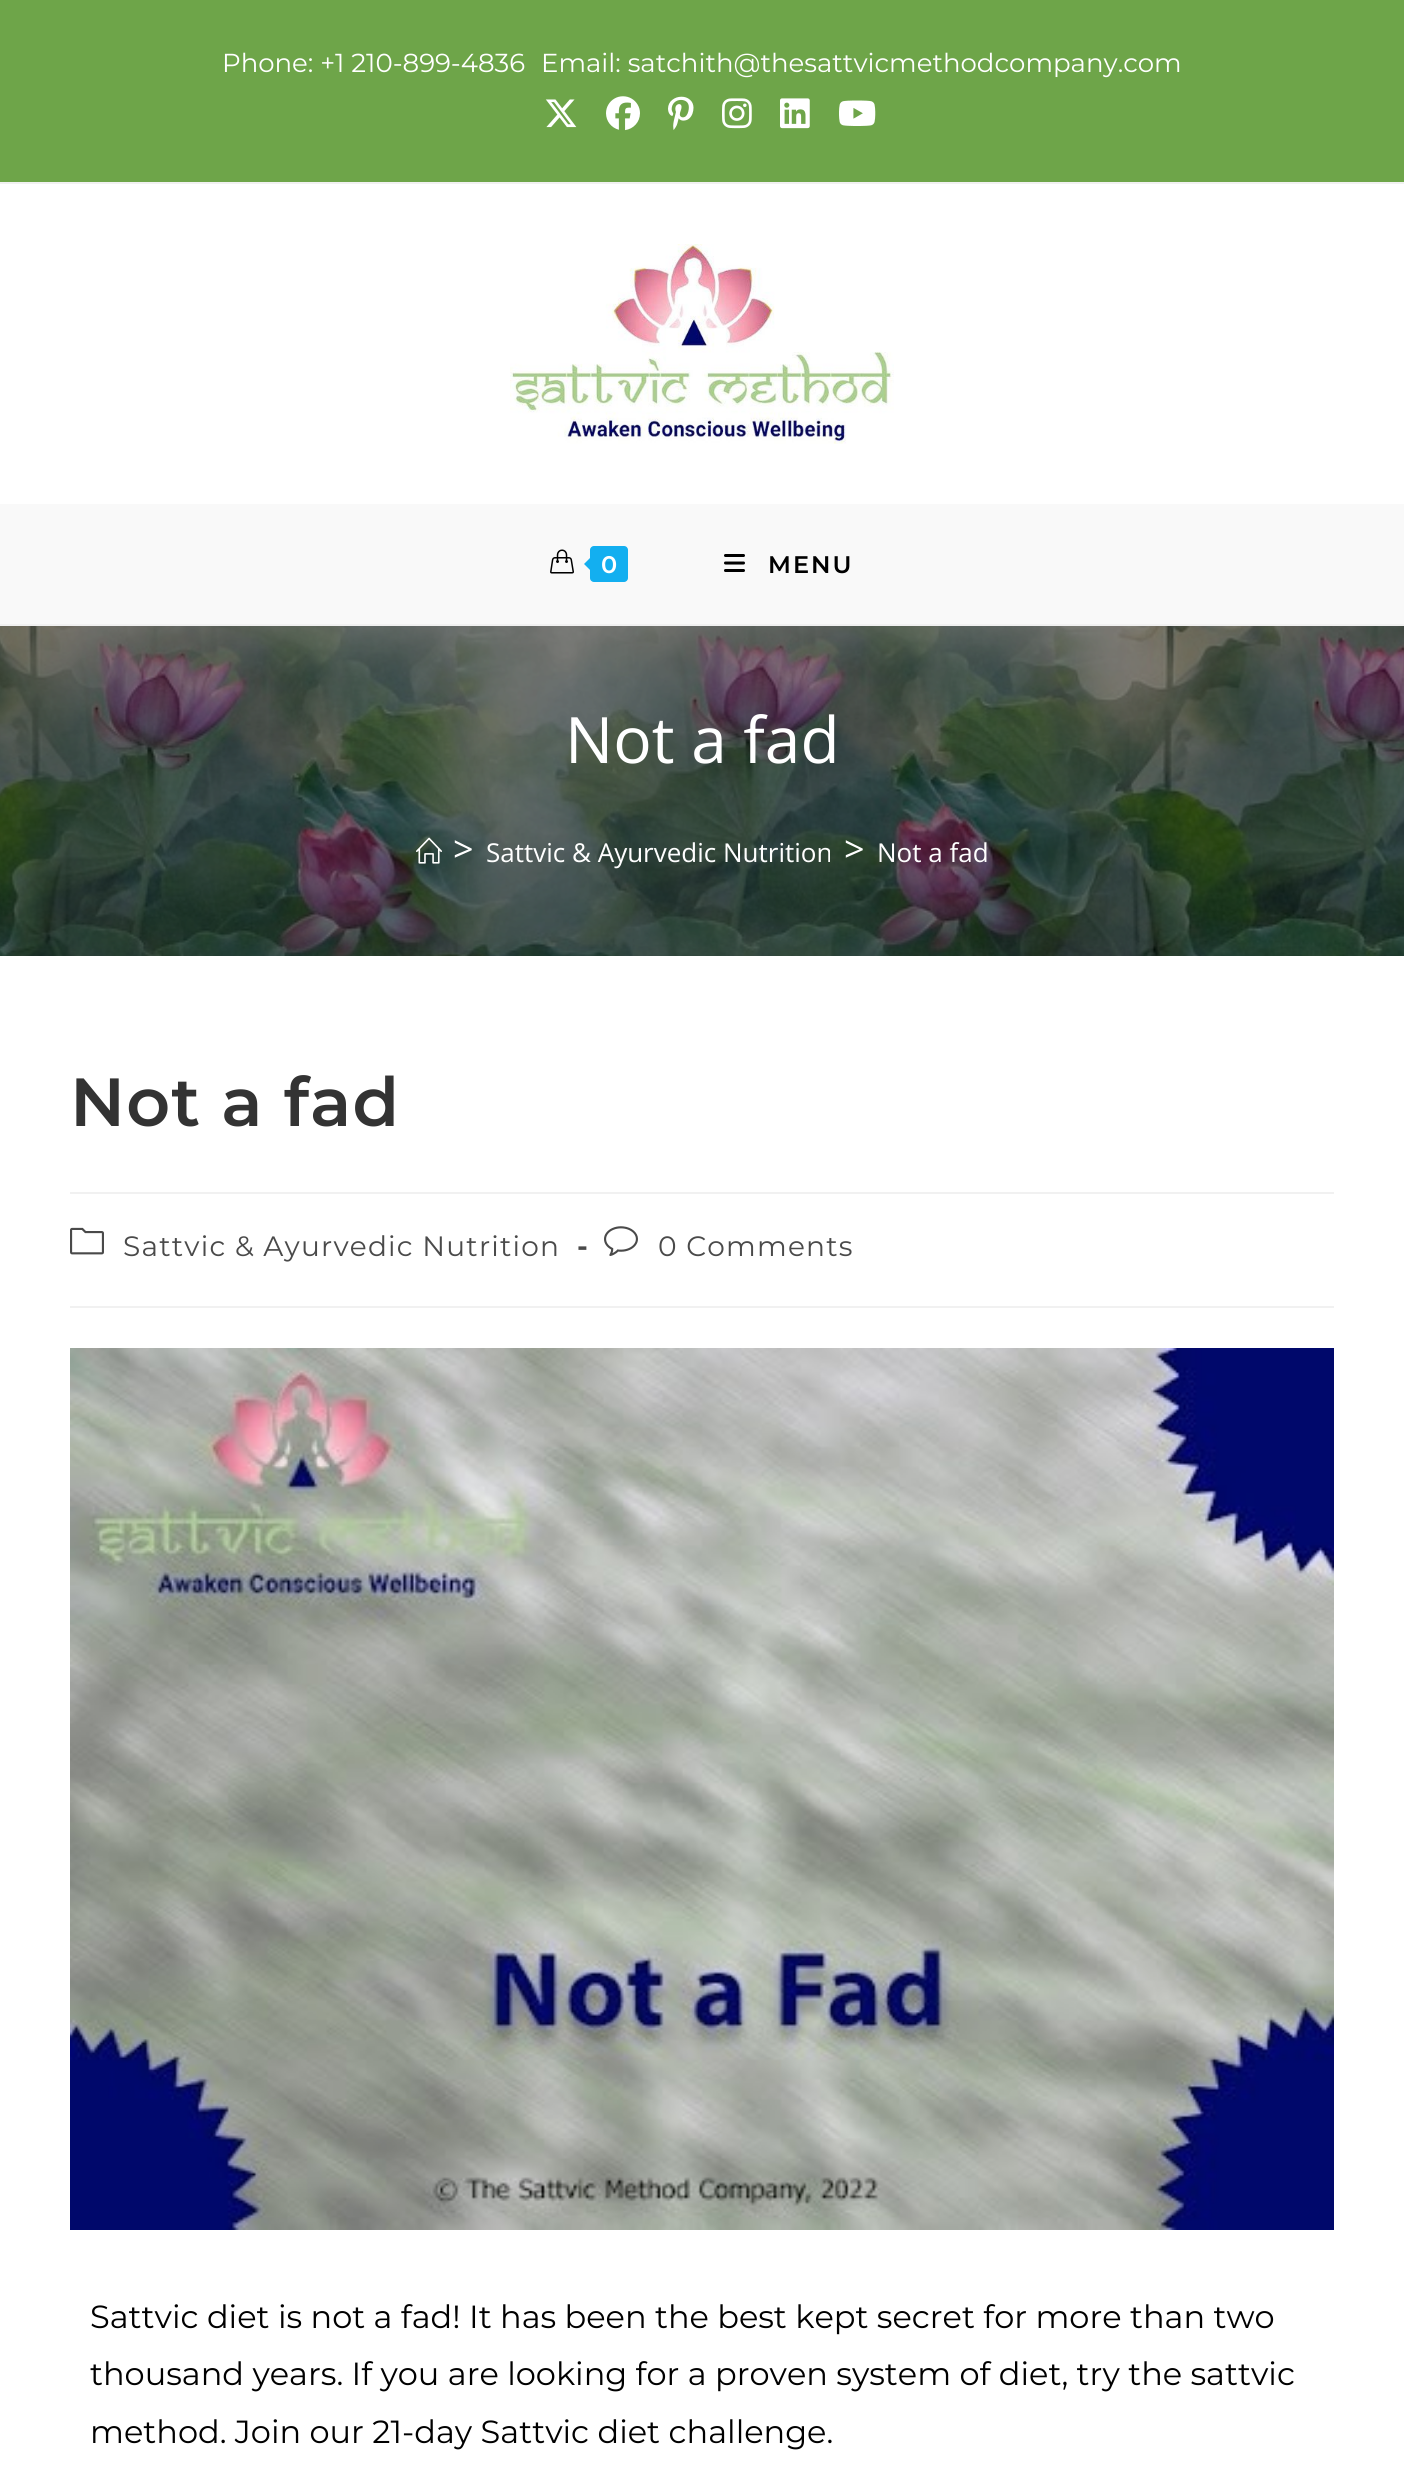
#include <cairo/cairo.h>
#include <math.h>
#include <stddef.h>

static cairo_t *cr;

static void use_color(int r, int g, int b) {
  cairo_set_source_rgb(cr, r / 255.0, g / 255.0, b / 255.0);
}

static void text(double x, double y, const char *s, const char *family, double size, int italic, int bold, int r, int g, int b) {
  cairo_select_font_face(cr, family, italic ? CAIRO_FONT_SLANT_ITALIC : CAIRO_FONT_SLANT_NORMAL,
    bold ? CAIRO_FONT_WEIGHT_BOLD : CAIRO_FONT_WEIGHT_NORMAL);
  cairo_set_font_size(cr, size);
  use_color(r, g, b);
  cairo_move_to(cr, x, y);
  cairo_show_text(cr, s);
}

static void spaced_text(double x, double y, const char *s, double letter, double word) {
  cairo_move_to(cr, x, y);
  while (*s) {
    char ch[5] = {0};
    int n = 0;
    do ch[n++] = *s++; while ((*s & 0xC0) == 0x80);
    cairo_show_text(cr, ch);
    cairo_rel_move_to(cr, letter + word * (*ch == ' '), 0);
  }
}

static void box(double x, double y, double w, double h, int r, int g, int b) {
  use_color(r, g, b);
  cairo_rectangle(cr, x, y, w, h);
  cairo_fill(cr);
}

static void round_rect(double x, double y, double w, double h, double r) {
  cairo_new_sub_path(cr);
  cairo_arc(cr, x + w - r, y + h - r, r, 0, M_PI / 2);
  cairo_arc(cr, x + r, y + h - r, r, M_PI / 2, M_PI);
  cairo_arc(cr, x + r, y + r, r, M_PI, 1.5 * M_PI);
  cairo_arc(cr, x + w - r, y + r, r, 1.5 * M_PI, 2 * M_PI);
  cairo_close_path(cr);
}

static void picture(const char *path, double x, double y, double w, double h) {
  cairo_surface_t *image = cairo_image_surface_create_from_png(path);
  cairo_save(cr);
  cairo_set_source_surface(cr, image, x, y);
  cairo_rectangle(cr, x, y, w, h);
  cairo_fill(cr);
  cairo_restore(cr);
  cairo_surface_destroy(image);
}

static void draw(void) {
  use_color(255, 255, 255);
  cairo_paint(cr);
  box(0, 0, 1404, 182, 110, 165, 73);
  box(0, 182, 1404, 2, 241, 241, 241);
  picture("img_01.png", 545, 99, 32, 29);
  picture("img_02.png", 606, 96, 34, 35);
  picture("img_03.png", 668, 96, 26, 34);
  picture("img_04.png", 722, 98, 30, 31);
  picture("img_05.png", 780, 98, 30, 31);
  picture("img_06.png", 839, 100, 37, 26);
  box(0, 624, 1404, 2, 241, 241, 241);
  picture("img_07.png", 510, 244, 384, 200);
  box(0, 504, 1404, 120, 249, 249, 249);
  picture("img_08.png", 550, 549, 24, 25);
  use_color(19, 175, 240);
  round_rect(590, 546, 38, 36, 4);
  cairo_fill(cr);
  cairo_new_path(cr);
  cairo_move_to(cr, 594, 554);
  cairo_line_to(cr, 594, 574);
  cairo_line_to(cr, 584, 564);
  cairo_close_path(cr);
  cairo_fill(cr);
  picture("img_09.png", 724, 554, 21, 18);
  picture("img_10.png", 0, 626, 1404, 330);
  picture("img_11.png", 416, 837, 26, 27);
  box(70, 1192, 1264, 2, 241, 241, 241);
  box(70, 1306, 1264, 2, 241, 241, 241);
  picture("img_12.png", 70, 1227, 34, 28);
  picture("img_13.png", 604, 1226, 34, 30);
  picture("img_14.png", 70, 1348, 1264, 882);
  text(222, 72, "Phone: +1 210-899-4836", "Montserrat", 26, 0, 0, 255, 255, 255);
  text(541, 72, "Email: satchith@thesattvicmethodcompany.com", "Montserrat", 26, 0, 0, 255, 255, 255);
  cairo_select_font_face(cr, "Montserrat SemiBold", CAIRO_FONT_SLANT_NORMAL, CAIRO_FONT_WEIGHT_NORMAL);
  cairo_set_font_size(cr, 24);
  spaced_text(601, 573, "0", 2, 0);
  use_color(0, 0, 0);
  spaced_text(768, 573, "MENU", 2, 0);
  text(565, 763, "Not a fad", "Open Sans", 64, 0, 0, 255, 255, 255);
  text(453, 862, ">", "Open Sans", 36, 0, 0, 255, 255, 255);
  text(486, 862, "Sattvic & Ayurvedic Nutrition", "Open Sans", 26, 0, 0, 255, 255, 255);
  text(844, 862, ">", "Open Sans", 36, 0, 0, 255, 255, 255);
  text(877, 862, "Not a fad", "Open Sans", 26, 0, 0, 255, 255, 255);
  cairo_select_font_face(cr, "Montserrat SemiBold", CAIRO_FONT_SLANT_NORMAL, CAIRO_FONT_WEIGHT_NORMAL);
  cairo_set_font_size(cr, 68);
  use_color(51, 51, 51);
  spaced_text(70, 1126, "Not a fad", 1.2, 0);
  cairo_select_font_face(cr, "Montserrat", CAIRO_FONT_SLANT_NORMAL, CAIRO_FONT_WEIGHT_NORMAL);
  cairo_set_font_size(cr, 28);
  use_color(74, 74, 74);
  spaced_text(123, 1256, "Sattvic & Ayurvedic Nutrition", 1.2, 0);
  cairo_select_font_face(cr, "Montserrat", CAIRO_FONT_SLANT_NORMAL, CAIRO_FONT_WEIGHT_BOLD);
  spaced_text(577, 1256, "-", 1.2, 0);
  cairo_select_font_face(cr, "Montserrat", CAIRO_FONT_SLANT_NORMAL, CAIRO_FONT_WEIGHT_NORMAL);
  spaced_text(658, 1256, "0 Comments", 1.2, 0);
  text(90, 2328, "Sattvic diet is not a fad! It has been the best kept secret for more than two", "Montserrat", 32, 0, 0, 0, 0, 0);
  text(90, 2385, "thousand years. If you are looking for a proven system of diet, try the sattvic", "Montserrat", 32, 0, 0, 0, 0, 0);
  text(90, 2443, "method. Join our 21-day Sattvic diet challenge.", "Montserrat", 32, 0, 0, 0, 0, 0);
}

int main(void) {
  cairo_surface_t *surface = cairo_image_surface_create(CAIRO_FORMAT_RGB24, 1404, 2468);
  cr = cairo_create(surface);
  cairo_font_options_t *options = cairo_font_options_create();
  cairo_font_options_set_hint_metrics(options, CAIRO_HINT_METRICS_OFF);
  cairo_font_options_set_hint_style(options, CAIRO_HINT_STYLE_NONE);
  cairo_set_font_options(cr, options);
  cairo_set_miter_limit(cr, 4);
  draw();
  cairo_surface_write_to_png(surface, "out.png");
  cairo_font_options_destroy(options);
  cairo_destroy(cr);
  cairo_surface_destroy(surface);
  return 0;
}
